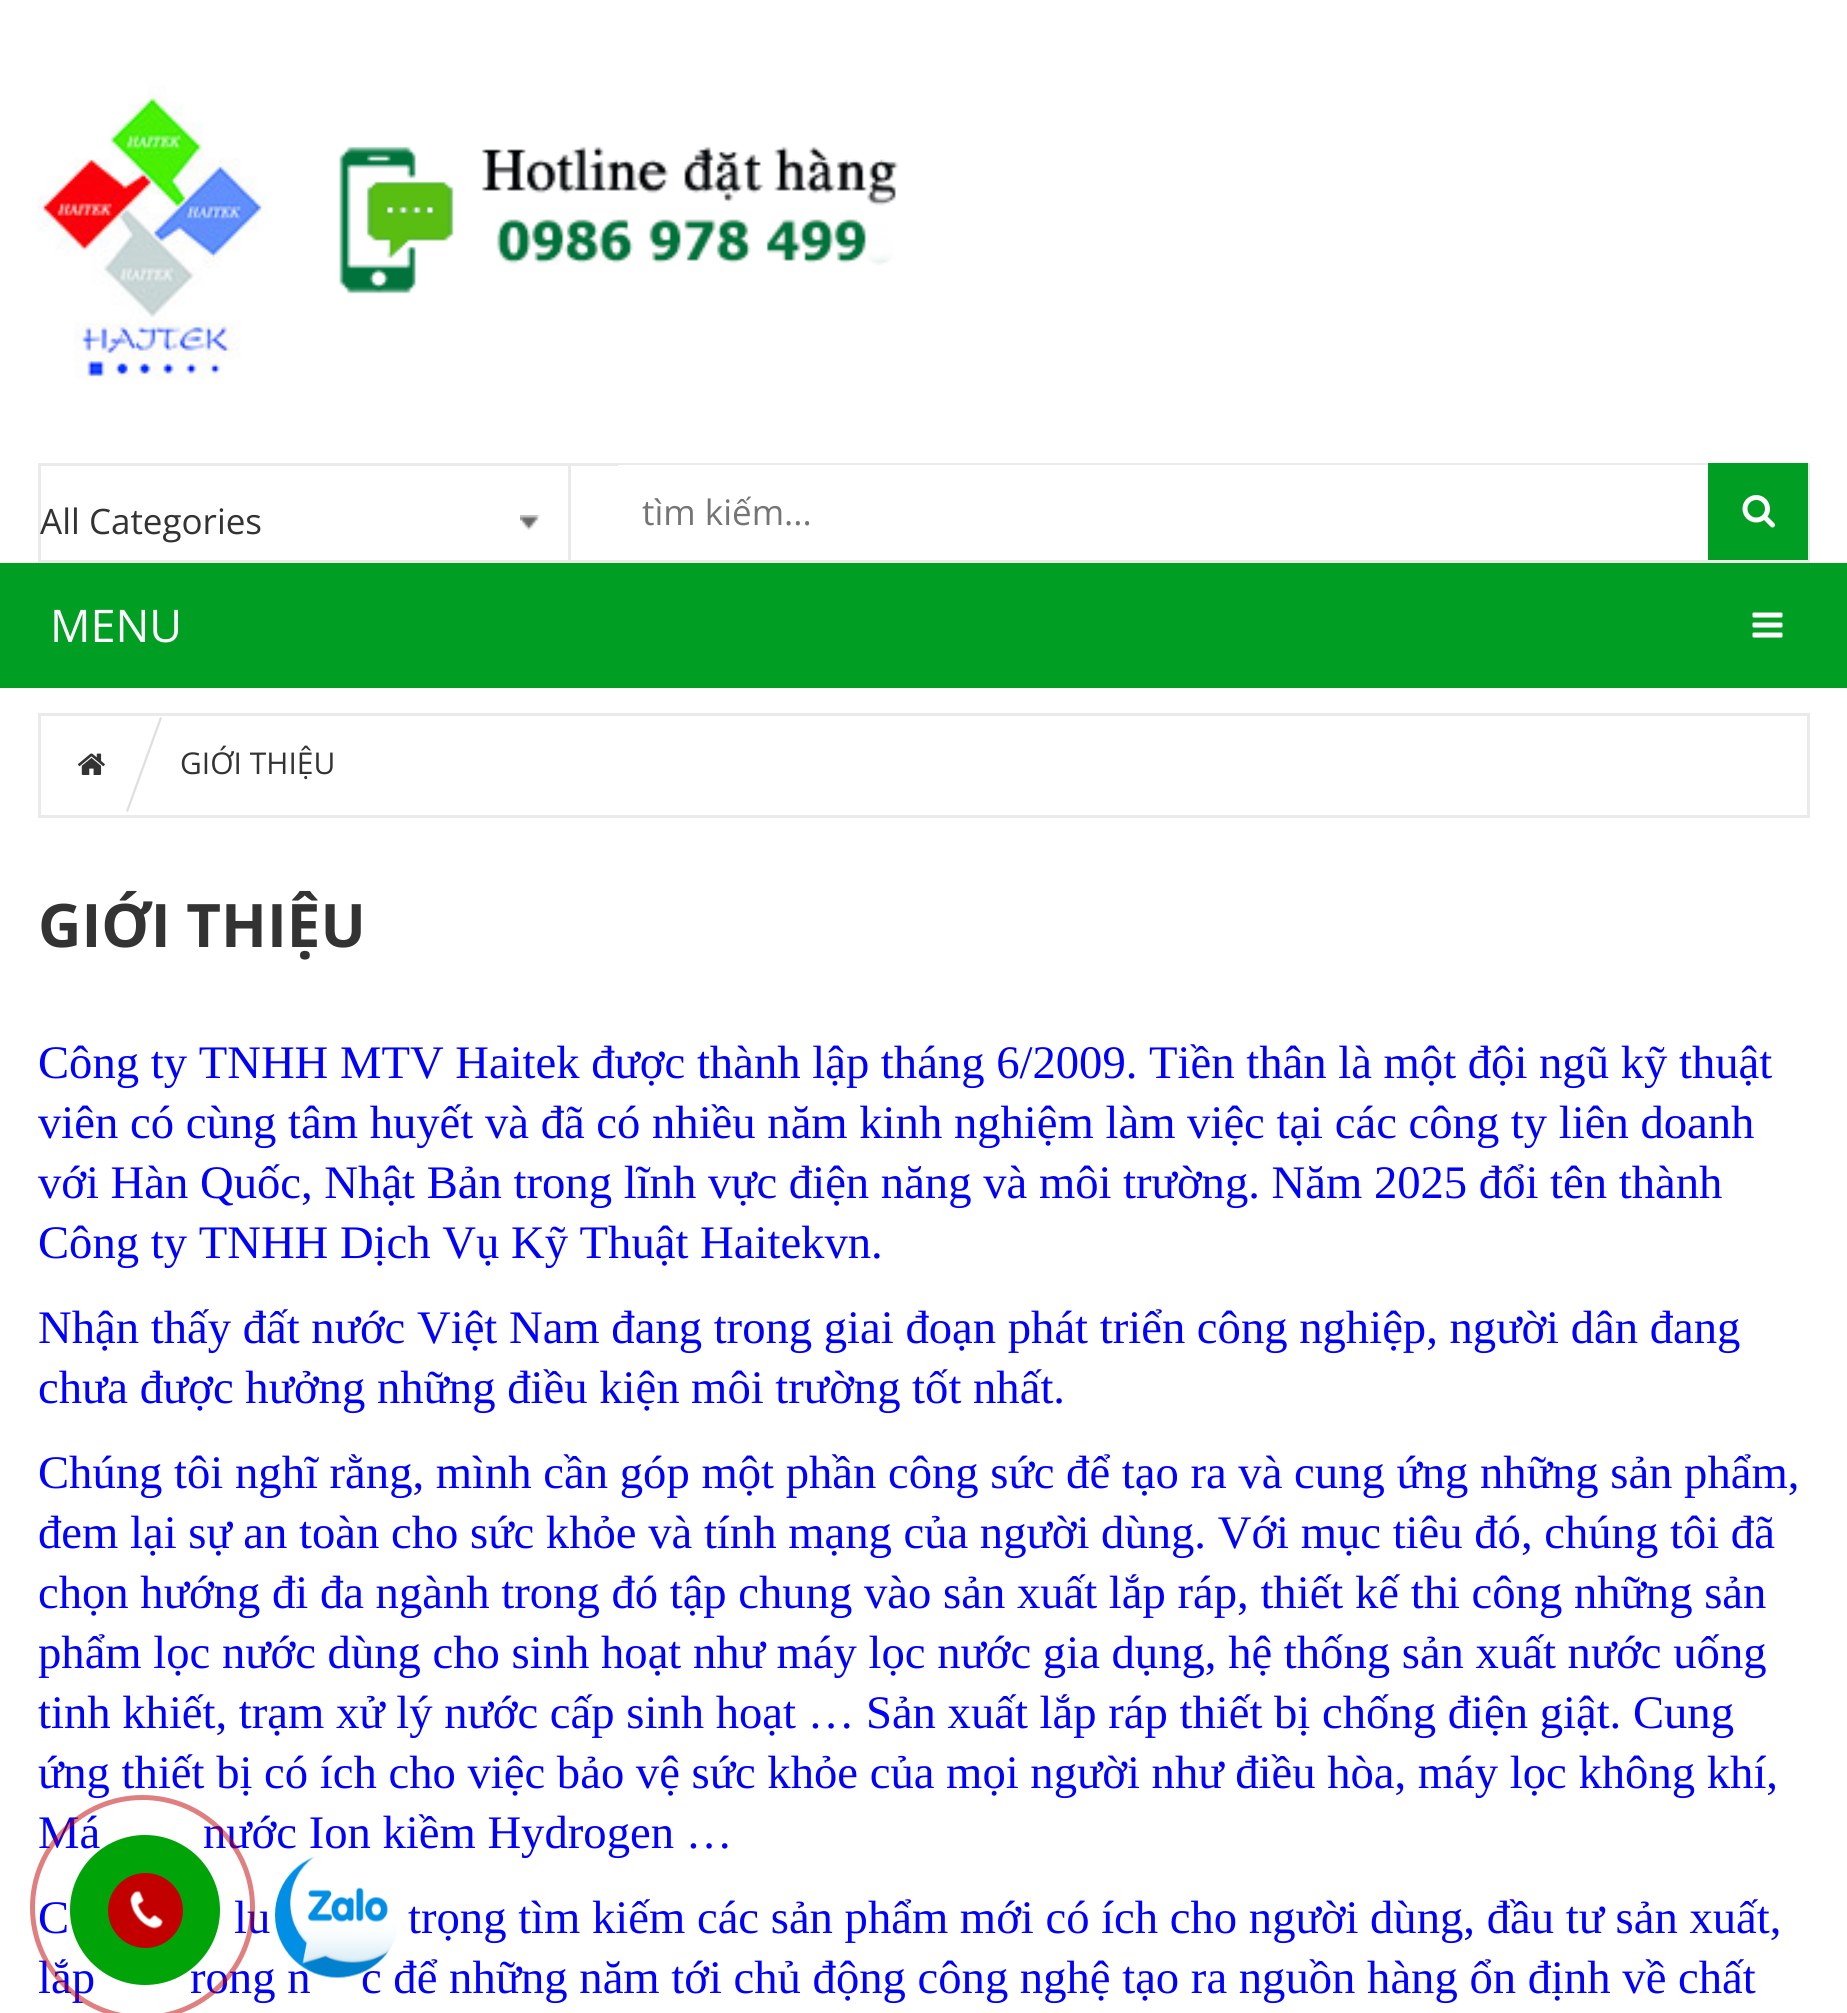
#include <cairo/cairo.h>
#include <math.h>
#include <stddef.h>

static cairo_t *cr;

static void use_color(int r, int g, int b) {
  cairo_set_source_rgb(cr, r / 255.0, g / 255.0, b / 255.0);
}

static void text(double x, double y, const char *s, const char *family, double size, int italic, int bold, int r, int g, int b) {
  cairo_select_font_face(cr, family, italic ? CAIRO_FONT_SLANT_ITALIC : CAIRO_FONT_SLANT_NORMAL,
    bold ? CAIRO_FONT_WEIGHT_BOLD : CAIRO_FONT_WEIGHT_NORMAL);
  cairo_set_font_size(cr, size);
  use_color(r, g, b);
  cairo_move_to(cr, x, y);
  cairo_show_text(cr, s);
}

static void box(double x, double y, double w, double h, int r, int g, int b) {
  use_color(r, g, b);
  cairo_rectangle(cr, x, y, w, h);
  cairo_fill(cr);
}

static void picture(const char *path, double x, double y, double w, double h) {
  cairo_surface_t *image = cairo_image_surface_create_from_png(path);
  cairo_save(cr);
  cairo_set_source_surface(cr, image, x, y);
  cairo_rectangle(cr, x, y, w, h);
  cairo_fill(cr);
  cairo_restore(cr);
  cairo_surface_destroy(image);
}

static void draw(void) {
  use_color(255, 255, 255);
  cairo_paint(cr);
  picture("img_01.png", 37, 85, 231, 295);
  picture("img_02.png", 339, 146, 560, 148);
  cairo_rectangle(cr, 39.5, 464.5, 1769, 97);
  use_color(234, 234, 234);
  cairo_set_line_width(cr, 3);
  cairo_stroke(cr);
  box(568, 465, 3, 95, 234, 234, 234);
  picture("img_03.png", 520, 515, 21, 15);
  box(618, 465, 1090, 1, 255, 255, 255);
  box(1708, 463, 100, 97, 0, 158, 34);
  picture("img_04.png", 1742, 495, 33, 33);
  box(0, 563, 1847, 125, 0, 158, 34);
  picture("img_05.png", 1752, 612, 31, 26);
  cairo_rectangle(cr, 39.5, 714.5, 1769, 102);
  use_color(234, 234, 234);
  cairo_stroke(cr);
  picture("img_06.png", 78, 753, 27, 22);
  use_color(224, 222, 222);
  cairo_new_path(cr);
  cairo_move_to(cr, 160, 717);
  cairo_line_to(cr, 162, 718);
  cairo_line_to(cr, 128, 812);
  cairo_line_to(cr, 126, 811);
  cairo_close_path(cr);
  cairo_fill(cr);
  text(40, 534, "All Categories", "Open Sans", 35, 0, 0, 51, 51, 51);
  text(642, 525, "tìm kiếm...", "Open Sans", 35, 0, 0, 117, 117, 117);
  text(50, 642, "MENU", "Open Sans", 45, 0, 0, 255, 255, 255);
  text(180, 774, "GIỚI THIỆU", "Open Sans", 30, 0, 0, 51, 51, 51);
  text(38, 947, "GIỚI THIỆU", "Open Sans", 60, 0, 1, 51, 51, 51);
  text(38, 1078, "Công ty TNHH MTV Haitek được thành lập tháng 6/2009. Tiền thân là một đội ngũ kỹ thuật", "Liberation Serif", 46.65, 0, 0, 0, 0, 255);
  text(38, 1138, "viên có cùng tâm huyết và đã có nhiều năm kinh nghiệm làm việc tại các công ty liên doanh", "Liberation Serif", 46.65, 0, 0, 0, 0, 255);
  text(38, 1198, "với Hàn Quốc, Nhật Bản trong lĩnh vực điện năng và môi trường. Năm 2025 đổi tên thành", "Liberation Serif", 46.65, 0, 0, 0, 0, 255);
  text(38, 1258, "Công ty TNHH Dịch Vụ Kỹ Thuật Haitekvn.", "Liberation Serif", 46.65, 0, 0, 0, 0, 255);
  text(38, 1343, "Nhận thấy đất nước Việt Nam đang trong giai đoạn phát triển công nghiệp, người dân đang", "Liberation Serif", 46.65, 0, 0, 0, 0, 255);
  text(38, 1403, "chưa được hưởng những điều kiện môi trường tốt nhất.", "Liberation Serif", 46.65, 0, 0, 0, 0, 255);
  text(38, 1488, "Chúng tôi nghĩ rằng, mình cần góp một phần công sức để tạo ra và cung ứng những sản phẩm,", "Liberation Serif", 46.65, 0, 0, 0, 0, 255);
  text(38, 1548, "đem lại sự an toàn cho sức khỏe và tính mạng của người dùng. Với mục tiêu đó, chúng tôi đã", "Liberation Serif", 46.65, 0, 0, 0, 0, 255);
  text(38, 1608, "chọn hướng đi đa ngành trong đó tập chung vào sản xuất lắp ráp, thiết kế thi công những sản", "Liberation Serif", 46.65, 0, 0, 0, 0, 255);
  text(38, 1668, "phẩm lọc nước dùng cho sinh hoạt như máy lọc nước gia dụng, hệ thống sản xuất nước uống", "Liberation Serif", 46.65, 0, 0, 0, 0, 255);
  text(38, 1728, "tinh khiết, trạm xử lý nước cấp sinh hoạt … Sản xuất lắp ráp thiết bị chống điện giật. Cung", "Liberation Serif", 46.65, 0, 0, 0, 0, 255);
  text(38, 1788, "ứng thiết bị có ích cho việc bảo vệ sức khỏe của mọi người như điều hòa, máy lọc không khí,", "Liberation Serif", 46.65, 0, 0, 0, 0, 255);
  text(38, 1848, "Má", "Liberation Serif", 46.65, 0, 0, 0, 0, 255);
  text(203, 1848, "nước Ion kiềm Hydrogen …", "Liberation Serif", 46.65, 0, 0, 0, 0, 255);
  text(38, 1933, "C", "Liberation Serif", 46.65, 0, 0, 0, 0, 255);
  text(234, 1933, "lu", "Liberation Serif", 46.65, 0, 0, 0, 0, 255);
  text(408, 1933, "trọng tìm kiếm các sản phẩm mới có ích cho người dùng, đầu tư sản xuất,", "Liberation Serif", 46.65, 0, 0, 0, 0, 255);
  text(38, 1993, "lắp", "Liberation Serif", 46.65, 0, 0, 0, 0, 255);
  text(190, 1993, "rong n", "Liberation Serif", 46.65, 0, 0, 0, 0, 255);
  text(361, 1993, "c để những năm tới chủ động công nghệ tạo ra nguồn hàng ổn định về chất", "Liberation Serif", 46.65, 0, 0, 0, 0, 255);
  cairo_new_path(cr);
  cairo_arc(cr, 142.5, 1907.5, 110, 0, 2 * M_PI);
  cairo_set_source_rgba(cr, 0.761, 0, 0, 0.5);
  cairo_set_line_width(cr, 5);
  cairo_stroke(cr);
  use_color(0, 163, 8);
  cairo_arc(cr, 145, 1910, 75, 0, 2 * M_PI);
  cairo_fill(cr);
  use_color(194, 0, 0);
  cairo_arc(cr, 145.5, 1910.5, 37.5, 0, 2 * M_PI);
  cairo_fill(cr);
  picture("img_07.png", 130, 1890, 33, 39);
  picture("img_08.png", 275, 1856, 122, 122);
}

int main(void) {
  cairo_surface_t *surface = cairo_image_surface_create(CAIRO_FORMAT_RGB24, 1847, 2013);
  cr = cairo_create(surface);
  cairo_font_options_t *options = cairo_font_options_create();
  cairo_font_options_set_hint_metrics(options, CAIRO_HINT_METRICS_OFF);
  cairo_font_options_set_hint_style(options, CAIRO_HINT_STYLE_NONE);
  cairo_set_font_options(cr, options);
  cairo_set_miter_limit(cr, 4);
  draw();
  cairo_surface_write_to_png(surface, "out.png");
  cairo_font_options_destroy(options);
  cairo_destroy(cr);
  cairo_surface_destroy(surface);
  return 0;
}
